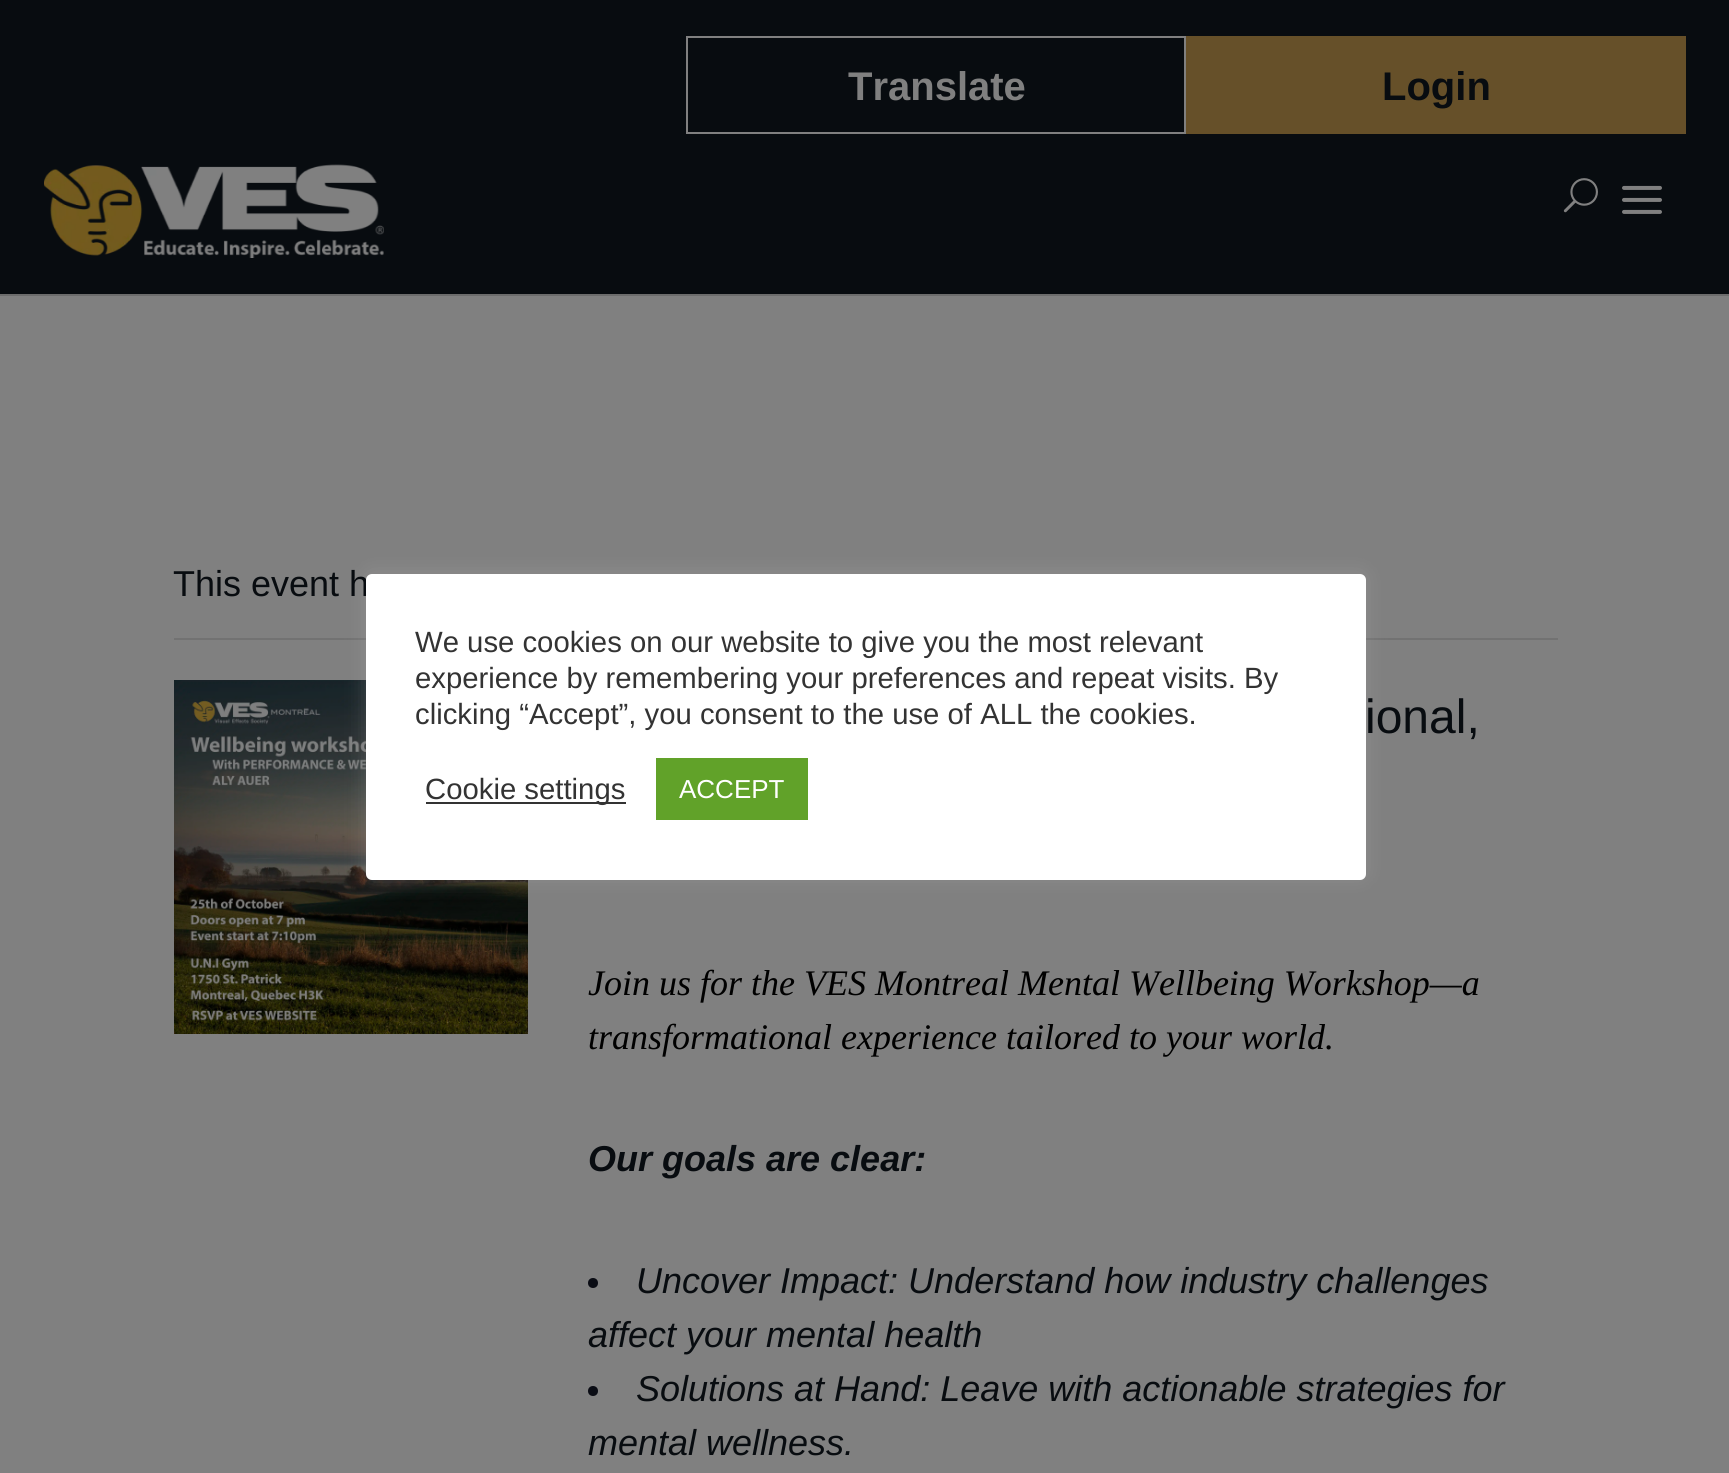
#include <cairo/cairo.h>
#include <math.h>
#include <stddef.h>

static cairo_t *cr;

static void use_color(int r, int g, int b) {
  cairo_set_source_rgb(cr, r / 255.0, g / 255.0, b / 255.0);
}

static void text(double x, double y, const char *s, const char *family, double size, int italic, int bold, int r, int g, int b) {
  cairo_select_font_face(cr, family, italic ? CAIRO_FONT_SLANT_ITALIC : CAIRO_FONT_SLANT_NORMAL,
    bold ? CAIRO_FONT_WEIGHT_BOLD : CAIRO_FONT_WEIGHT_NORMAL);
  cairo_set_font_size(cr, size);
  use_color(r, g, b);
  cairo_move_to(cr, x, y);
  cairo_show_text(cr, s);
}

static void box(double x, double y, double w, double h, int r, int g, int b) {
  use_color(r, g, b);
  cairo_rectangle(cr, x, y, w, h);
  cairo_fill(cr);
}

static void round_rect(double x, double y, double w, double h, double r) {
  cairo_new_sub_path(cr);
  cairo_arc(cr, x + w - r, y + h - r, r, 0, M_PI / 2);
  cairo_arc(cr, x + r, y + h - r, r, M_PI / 2, M_PI);
  cairo_arc(cr, x + r, y + r, r, M_PI, 1.5 * M_PI);
  cairo_arc(cr, x + w - r, y + r, r, 1.5 * M_PI, 2 * M_PI);
  cairo_close_path(cr);
}

static void shadow(double x, double y, double w, double h, double r, double blur, double alpha) {
  cairo_push_group_with_content(cr, CAIRO_CONTENT_ALPHA);
  cairo_set_operator(cr, CAIRO_OPERATOR_SOURCE);
  for (int i = 15; i >= -15 && fmin(w, h) + blur * i / 3 > 0; i -= 2) {
    double e = blur * i / 6;
    cairo_set_source_rgba(cr, 0, 0, 0, alpha * erfc((i - 1) / 8.5) / 2);
    round_rect(x - e, y - e, w + 2 * e, h + 2 * e, fmax(0, fmin(r + e + blur * .6, fmin(w, h) / 2 + e)));
    cairo_fill(cr);
  }
  cairo_pattern_t *soft = cairo_pop_group(cr);
  cairo_mask(cr, soft);
  cairo_pattern_destroy(soft);
}

static void picture(const char *path, double x, double y, double w, double h) {
  cairo_surface_t *image = cairo_image_surface_create_from_png(path);
  cairo_save(cr);
  cairo_set_source_surface(cr, image, x, y);
  cairo_rectangle(cr, x, y, w, h);
  cairo_fill(cr);
  cairo_restore(cr);
  cairo_surface_destroy(image);
}

static void draw(void) {
  use_color(128, 128, 128);
  cairo_paint(cr);
  box(0, 0, 1729, 294, 8, 12, 16);
  box(0, 294, 1729, 2, 108, 108, 108);
  cairo_rectangle(cr, 687, 37, 498, 96);
  use_color(128, 128, 128);
  cairo_stroke(cr);
  box(1186, 36, 500, 98, 102, 80, 41);
  picture("img_01.png", 44, 164, 340, 94);
  picture("img_02.png", 1563, 178, 35, 35);
  picture("img_03.png", 1622, 185, 40, 29);
  box(174, 638, 1384, 2, 114, 114, 114);
  picture("img_04.png", 174, 680, 354, 354);
  use_color(10, 12, 20);
  cairo_arc(cr, 593, 1283, 5, 0, 2 * M_PI);
  cairo_fill(cr);
  cairo_arc(cr, 593, 1391, 5, 0, 2 * M_PI);
  cairo_fill(cr);
  use_color(172, 171, 171);
  shadow(366, 572, 1000, 306, 6, 10, 0.3);
  text(848, 100, "Translate", "Liberation Sans", 40, 0, 1, 128, 128, 128);
  text(1382, 100, "Login", "Liberation Sans", 40, 0, 1, 8, 12, 16);
  text(173, 596, "This event h", "Liberation Sans", 36, 0, 0, 8, 12, 16);
  text(1365, 733, "ional,", "Liberation Sans", 48, 0, 0, 8, 12, 16);
  text(588, 995, "Join us for the VES Montreal Mental Wellbeing Workshop—a", "Liberation Serif", 36, 1, 0, 0, 0, 0);
  text(588, 1049, "transformational experience tailored to your world.", "Liberation Serif", 36, 1, 0, 0, 0, 0);
  text(588, 1171, "Our goals are clear:", "Liberation Sans", 36, 1, 1, 8, 12, 16);
  text(636, 1293, "Uncover Impact: Understand how industry challenges", "Liberation Sans", 36, 1, 0, 8, 12, 16);
  text(588, 1347, "affect your mental health", "Liberation Sans", 36, 1, 0, 8, 12, 16);
  text(636, 1401, "Solutions at Hand: Leave with actionable strategies for", "Liberation Sans", 36, 1, 0, 8, 12, 16);
  text(588, 1455, "mental wellness.", "Liberation Sans", 36, 1, 0, 8, 12, 16);
  use_color(255, 255, 255);
  round_rect(366, 574, 1000, 306, 6);
  cairo_fill(cr);
  text(415, 652, "We use cookies on our website to give you the most relevant", "Liberation Sans", 29.3, 0, 0, 51, 51, 51);
  text(415, 688, "experience by remembering your preferences and repeat visits. By", "Liberation Sans", 29.3, 0, 0, 51, 51, 51);
  text(415, 724, "clicking “Accept”, you consent to the use of ALL the cookies.", "Liberation Sans", 29.3, 0, 0, 51, 51, 51);
  box(426, 802, 200, 2, 51, 51, 51);
  text(425, 799, "Cookie settings", "Liberation Sans", 29.3, 0, 0, 51, 51, 51);
  box(656, 758, 152, 62, 97, 162, 41);
  text(679, 798, "ACCEPT", "Liberation Sans", 26, 0, 0, 255, 255, 255);
}

int main(void) {
  cairo_surface_t *surface = cairo_image_surface_create(CAIRO_FORMAT_RGB24, 1729, 1473);
  cr = cairo_create(surface);
  cairo_font_options_t *options = cairo_font_options_create();
  cairo_font_options_set_hint_metrics(options, CAIRO_HINT_METRICS_OFF);
  cairo_font_options_set_hint_style(options, CAIRO_HINT_STYLE_NONE);
  cairo_set_font_options(cr, options);
  cairo_set_miter_limit(cr, 4);
  draw();
  cairo_surface_write_to_png(surface, "out.png");
  cairo_font_options_destroy(options);
  cairo_destroy(cr);
  cairo_surface_destroy(surface);
  return 0;
}
